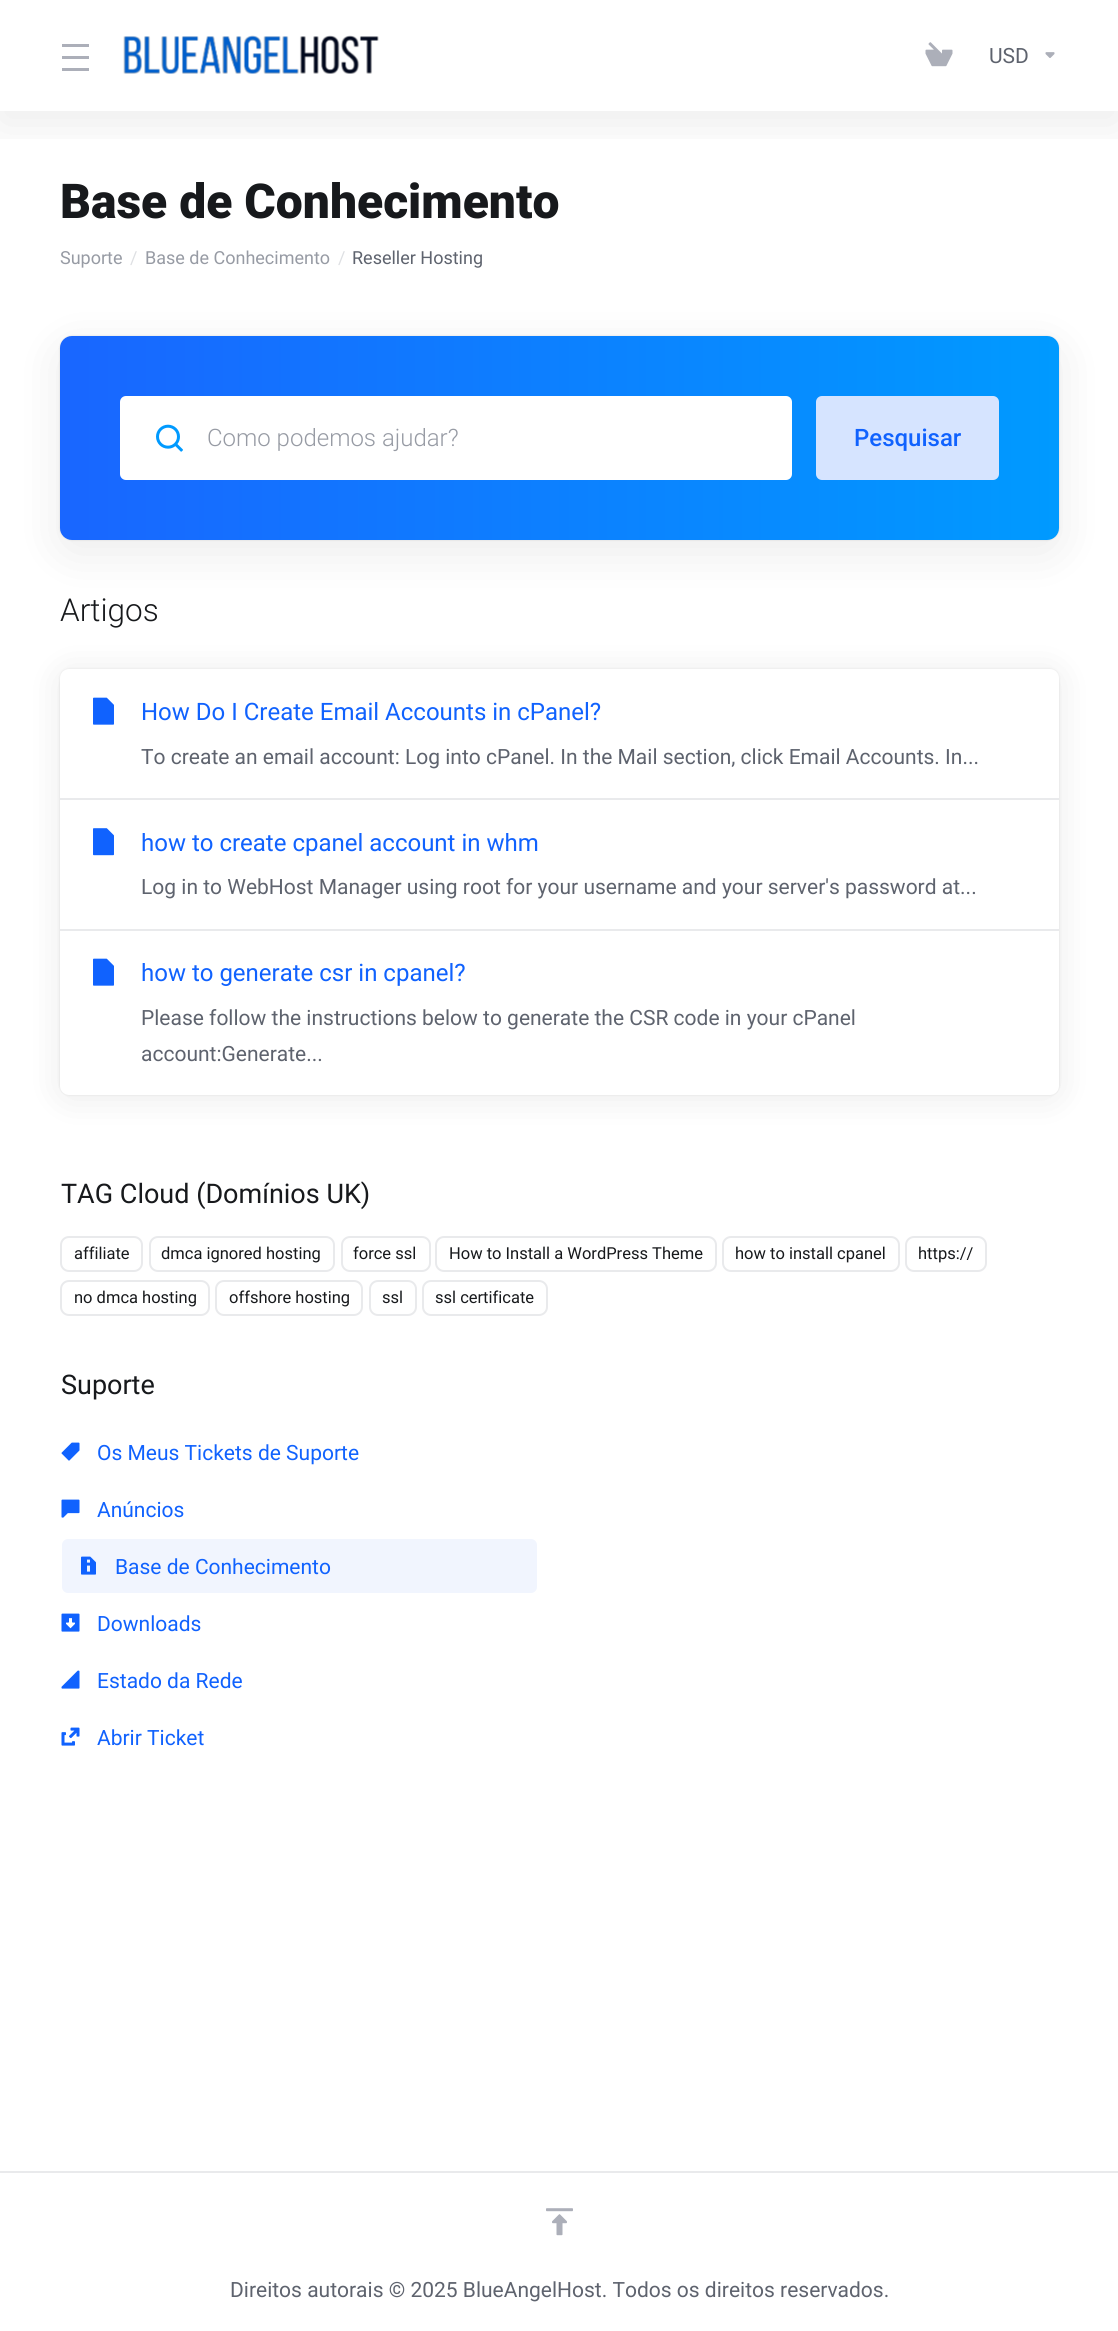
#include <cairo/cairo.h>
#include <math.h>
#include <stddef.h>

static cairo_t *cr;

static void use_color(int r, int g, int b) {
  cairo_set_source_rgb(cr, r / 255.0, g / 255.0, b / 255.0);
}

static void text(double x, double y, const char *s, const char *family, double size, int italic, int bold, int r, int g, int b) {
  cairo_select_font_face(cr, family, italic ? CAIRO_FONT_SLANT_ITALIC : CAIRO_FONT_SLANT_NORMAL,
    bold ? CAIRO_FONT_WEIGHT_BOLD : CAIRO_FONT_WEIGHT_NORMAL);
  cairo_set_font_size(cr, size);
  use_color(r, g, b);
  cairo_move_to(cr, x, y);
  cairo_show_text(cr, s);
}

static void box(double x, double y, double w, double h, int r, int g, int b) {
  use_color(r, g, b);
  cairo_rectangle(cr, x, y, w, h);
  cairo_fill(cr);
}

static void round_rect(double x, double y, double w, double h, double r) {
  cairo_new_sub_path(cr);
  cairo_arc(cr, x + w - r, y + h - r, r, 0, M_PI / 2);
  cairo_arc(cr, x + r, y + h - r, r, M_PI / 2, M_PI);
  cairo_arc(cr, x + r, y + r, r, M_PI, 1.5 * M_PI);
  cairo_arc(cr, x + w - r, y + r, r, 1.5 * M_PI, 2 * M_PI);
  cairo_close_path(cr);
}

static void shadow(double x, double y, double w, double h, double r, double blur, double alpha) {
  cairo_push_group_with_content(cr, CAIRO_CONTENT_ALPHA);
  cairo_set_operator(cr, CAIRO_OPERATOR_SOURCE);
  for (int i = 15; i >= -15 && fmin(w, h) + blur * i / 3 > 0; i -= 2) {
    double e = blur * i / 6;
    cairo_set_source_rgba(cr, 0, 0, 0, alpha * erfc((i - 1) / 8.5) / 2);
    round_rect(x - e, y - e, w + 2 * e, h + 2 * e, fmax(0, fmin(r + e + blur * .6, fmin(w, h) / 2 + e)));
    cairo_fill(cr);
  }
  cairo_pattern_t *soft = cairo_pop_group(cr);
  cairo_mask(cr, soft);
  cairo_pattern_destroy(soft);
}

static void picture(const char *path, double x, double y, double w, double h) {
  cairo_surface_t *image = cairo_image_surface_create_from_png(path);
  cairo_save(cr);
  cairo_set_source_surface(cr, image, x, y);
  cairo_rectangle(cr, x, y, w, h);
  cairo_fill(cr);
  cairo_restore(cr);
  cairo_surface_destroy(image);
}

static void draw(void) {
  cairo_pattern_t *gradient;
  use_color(255, 255, 255);
  cairo_paint(cr);
  cairo_save(cr);
  cairo_rectangle(cr, 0, 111, 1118, 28);
  cairo_clip(cr);
  use_color(0, 0, 0);
  shadow(0, 12, 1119, 111, 0, 24, 0.08);
  cairo_restore(cr);
  box(62, 44, 27, 3, 172, 175, 185);
  box(62, 56, 27, 3, 172, 175, 185);
  box(62, 68, 27, 3, 172, 175, 185);
  picture("img_01.png", 123, 35, 256, 39);
  picture("img_02.png", 925, 42, 28, 25);
  picture("img_03.png", 1045, 52, 10, 6);
  use_color(0, 0, 0);
  shadow(60, 348, 999, 204, 12, 24, 0.08);
  shadow(60, 336, 999, 204, 12, 1, 0.12);
  gradient = cairo_pattern_create_linear(60, 438, 1059, 438);
  cairo_pattern_add_color_stop_rgba(gradient, 0, 0.098, 0.4, 1, 1);
  cairo_pattern_add_color_stop_rgba(gradient, 1, 0, 0.604, 1, 1);
  cairo_set_source(cr, gradient);
  cairo_pattern_destroy(gradient);
  round_rect(60, 336, 999, 204, 12);
  cairo_fill(cr);
  use_color(255, 255, 255);
  round_rect(120, 396, 672, 84, 6);
  cairo_fill(cr);
  picture("img_04.png", 156, 424, 27, 28);
  use_color(214, 228, 255);
  round_rect(817, 397, 181, 82, 5);
  cairo_fill_preserve(cr);
  cairo_stroke(cr);
  use_color(0, 0, 0);
  shadow(60, 672, 999, 426, 9, 18, 0.08);
  shadow(60, 669, 999, 426, 9, 1, 0.1);
  use_color(255, 255, 255);
  round_rect(60, 669, 999, 426, 9);
  cairo_fill(cr);
  box(60, 798, 999, 2, 233, 234, 236);
  picture("img_05.png", 93, 697, 21, 28);
  box(60, 929, 999, 2, 233, 234, 236);
  picture("img_06.png", 93, 828, 21, 28);
  picture("img_05.png", 93, 958, 21, 28);
  round_rect(61, 1237, 81, 34, 8);
  cairo_stroke(cr);
  round_rect(150, 1237, 184, 34, 8);
  cairo_stroke(cr);
  round_rect(342, 1237, 88, 34, 8);
  cairo_stroke(cr);
  round_rect(436, 1237, 280, 34, 8);
  cairo_stroke(cr);
  round_rect(723, 1237, 176, 34, 8);
  cairo_stroke(cr);
  round_rect(906, 1237, 80, 34, 8);
  cairo_stroke(cr);
  round_rect(61, 1281, 148, 34, 8);
  cairo_stroke(cr);
  round_rect(216, 1281, 146, 34, 8);
  cairo_stroke(cr);
  round_rect(370, 1281, 46, 34, 8);
  cairo_stroke(cr);
  round_rect(423, 1281, 124, 34, 8);
  cairo_stroke(cr);
  picture("img_07.png", 61, 1442, 19, 19);
  picture("img_08.png", 61, 1499, 19, 19);
  use_color(241, 245, 254);
  round_rect(62, 1539, 475, 54, 6);
  cairo_fill(cr);
  picture("img_09.png", 81, 1556, 15, 19);
  picture("img_10.png", 61, 1613, 19, 19);
  picture("img_11.png", 61, 1670, 19, 19);
  picture("img_12.png", 61, 1727, 19, 19);
  box(0, 2171, 1118, 2, 233, 234, 236);
  picture("img_13.png", 546, 2208, 27, 28);
  text(989, 63, "USD", "Roboto", 21, 0, 0, 94, 99, 110);
  text(60, 218, "Base de Conhecimento", "Roboto Black", 48, 0, 0, 23, 25, 28);
  text(60, 264, "Suporte", "Roboto", 18, 0, 0, 151, 155, 164);
  text(130, 264, "/", "Roboto", 18, 0, 0, 222, 224, 227);
  text(145, 264, "Base de Conhecimento", "Roboto", 18, 0, 0, 151, 155, 164);
  text(338, 264, "/", "Roboto", 18, 0, 0, 222, 224, 227);
  text(352, 264, "Reseller Hosting", "Roboto", 18, 0, 0, 94, 99, 110);
  text(207, 446, "Como podemos ajudar?", "Roboto Light", 24, 0, 0, 151, 155, 164);
  text(854, 446, "Pesquisar", "Roboto Medium", 24, 0, 0, 16, 98, 254);
  text(60, 621, "Artigos", "Roboto Light", 31.5, 0, 0, 23, 25, 28);
  text(141, 720, "How Do I Create Email Accounts in cPanel?", "Roboto", 24, 0, 0, 16, 98, 254);
  text(141, 764, "To create an email account: Log into cPanel. In the Mail section, click Email Accounts. In...", "Roboto", 21, 0, 0, 94, 99, 110);
  text(141, 851, "how to create cpanel account in whm", "Roboto", 24, 0, 0, 16, 98, 254);
  text(141, 894, "Log in to WebHost Manager using root for your username and your server's password at...", "Roboto", 21, 0, 0, 94, 99, 110);
  text(141, 981, "how to generate csr in cpanel?", "Roboto", 24, 0, 0, 16, 98, 254);
  text(141, 1025, "Please follow the instructions below to generate the CSR code in your cPanel", "Roboto", 21, 0, 0, 94, 99, 110);
  text(141, 1061, "account:Generate...", "Roboto", 21, 0, 0, 94, 99, 110);
  text(61, 1203, "TAG Cloud (Domínios UK)", "Roboto", 27, 0, 0, 23, 25, 28);
  text(74, 1259, "affiliate", "Roboto", 16.5, 0, 0, 23, 25, 28);
  text(161, 1259, "dmca ignored hosting", "Roboto", 16.5, 0, 0, 23, 25, 28);
  text(353, 1259, "force ssl", "Roboto", 16.5, 0, 0, 23, 25, 28);
  text(449, 1259, "How to Install a WordPress Theme", "Roboto", 16.5, 0, 0, 23, 25, 28);
  text(735, 1259, "how to install cpanel", "Roboto", 16.5, 0, 0, 23, 25, 28);
  text(918, 1259, "https://", "Roboto", 16.5, 0, 0, 23, 25, 28);
  text(74, 1303, "no dmca hosting", "Roboto", 16.5, 0, 0, 23, 25, 28);
  text(229, 1303, "offshore hosting", "Roboto", 16.5, 0, 0, 23, 25, 28);
  text(382, 1303, "ssl", "Roboto", 16.5, 0, 0, 23, 25, 28);
  text(435, 1303, "ssl certificate", "Roboto", 16.5, 0, 0, 23, 25, 28);
  text(61, 1394, "Suporte", "Roboto", 27, 0, 0, 23, 25, 28);
  text(97, 1460, "Os Meus Tickets de Suporte", "Roboto", 21, 0, 0, 16, 98, 254);
  text(97, 1517, "Anúncios", "Roboto", 21, 0, 0, 16, 98, 254);
  text(115, 1574, "Base de Conhecimento", "Roboto", 21, 0, 0, 16, 98, 254);
  text(97, 1631, "Downloads", "Roboto", 21, 0, 0, 16, 98, 254);
  text(97, 1688, "Estado da Rede", "Roboto", 21, 0, 0, 16, 98, 254);
  text(97, 1745, "Abrir Ticket", "Roboto", 21, 0, 0, 16, 98, 254);
  text(230, 2297, "Direitos autorais © 2025 BlueAngelHost. Todos os direitos reservados.", "Roboto", 21, 0, 0, 94, 99, 110);
}

int main(void) {
  cairo_surface_t *surface = cairo_image_surface_create(CAIRO_FORMAT_RGB24, 1118, 2331);
  cr = cairo_create(surface);
  cairo_font_options_t *options = cairo_font_options_create();
  cairo_font_options_set_hint_metrics(options, CAIRO_HINT_METRICS_OFF);
  cairo_font_options_set_hint_style(options, CAIRO_HINT_STYLE_NONE);
  cairo_set_font_options(cr, options);
  cairo_set_miter_limit(cr, 4);
  draw();
  cairo_surface_write_to_png(surface, "out.png");
  cairo_font_options_destroy(options);
  cairo_destroy(cr);
  cairo_surface_destroy(surface);
  return 0;
}
